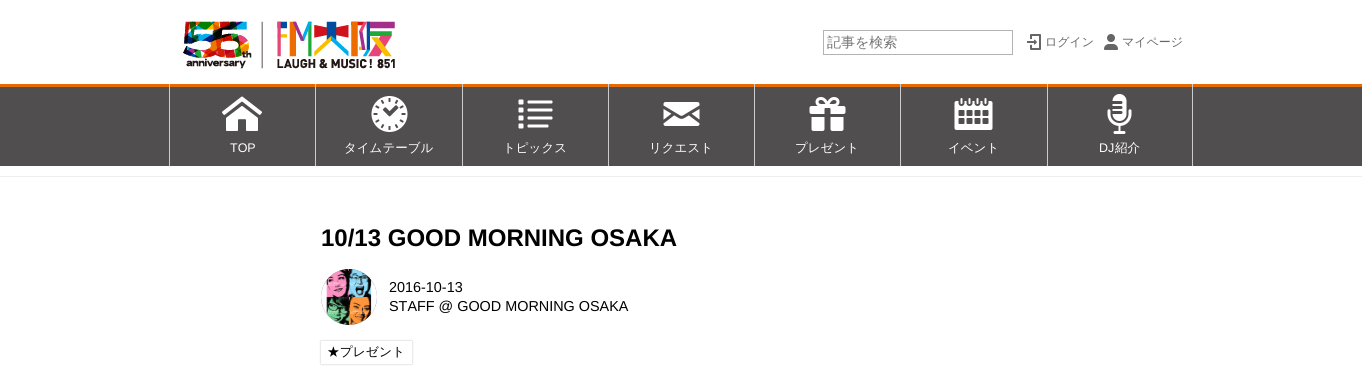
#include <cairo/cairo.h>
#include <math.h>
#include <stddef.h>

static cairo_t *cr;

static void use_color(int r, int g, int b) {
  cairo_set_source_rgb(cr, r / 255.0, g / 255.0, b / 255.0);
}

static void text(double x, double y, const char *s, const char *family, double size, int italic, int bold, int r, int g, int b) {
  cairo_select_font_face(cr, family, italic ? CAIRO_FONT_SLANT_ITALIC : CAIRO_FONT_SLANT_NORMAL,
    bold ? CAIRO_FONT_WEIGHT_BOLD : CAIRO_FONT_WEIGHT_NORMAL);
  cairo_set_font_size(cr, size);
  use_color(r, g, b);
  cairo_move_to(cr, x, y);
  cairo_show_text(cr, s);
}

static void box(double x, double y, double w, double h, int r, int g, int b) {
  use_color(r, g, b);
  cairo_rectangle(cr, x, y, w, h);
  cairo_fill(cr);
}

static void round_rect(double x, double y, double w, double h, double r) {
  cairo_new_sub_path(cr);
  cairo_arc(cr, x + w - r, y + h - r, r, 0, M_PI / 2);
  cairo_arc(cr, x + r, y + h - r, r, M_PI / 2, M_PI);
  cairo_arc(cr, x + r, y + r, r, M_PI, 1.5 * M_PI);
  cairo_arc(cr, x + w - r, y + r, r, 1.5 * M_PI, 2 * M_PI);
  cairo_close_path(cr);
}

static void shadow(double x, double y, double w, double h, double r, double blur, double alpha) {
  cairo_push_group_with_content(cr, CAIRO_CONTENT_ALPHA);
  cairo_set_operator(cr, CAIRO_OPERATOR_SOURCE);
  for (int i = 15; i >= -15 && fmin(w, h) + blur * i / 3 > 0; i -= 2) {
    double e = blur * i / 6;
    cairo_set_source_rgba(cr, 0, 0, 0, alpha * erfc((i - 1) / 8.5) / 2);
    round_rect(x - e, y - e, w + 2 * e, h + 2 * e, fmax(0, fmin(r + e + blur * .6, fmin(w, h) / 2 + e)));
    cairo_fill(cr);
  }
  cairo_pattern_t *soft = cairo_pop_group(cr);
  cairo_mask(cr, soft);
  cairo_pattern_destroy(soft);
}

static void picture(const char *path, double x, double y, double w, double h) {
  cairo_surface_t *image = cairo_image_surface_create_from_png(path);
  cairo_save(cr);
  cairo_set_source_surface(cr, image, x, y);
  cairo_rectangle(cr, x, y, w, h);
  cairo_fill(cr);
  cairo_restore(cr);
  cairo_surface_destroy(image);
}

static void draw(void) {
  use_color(255, 255, 255);
  cairo_paint(cr);
  picture("img_01.png", 183, 21, 212, 48);
  cairo_rectangle(cr, 823.5, 30.5, 189, 24);
  use_color(179, 179, 179);
  cairo_set_line_width(cr, 1);
  cairo_stroke(cr);
  picture("img_02.png", 1027, 34, 14, 16);
  picture("img_03.png", 1104, 34, 14, 16);
  box(0, 87, 1362, 79, 81, 78, 79);
  picture("img_04.png", 222, 96, 40, 35);
  box(0, 84, 1362, 3, 228, 107, 4);
  box(169, 84, 1, 82, 204, 204, 204);
  picture("img_05.png", 371, 96, 37, 36);
  box(315, 84, 1, 82, 204, 204, 204);
  picture("img_06.png", 518, 99, 35, 30);
  box(462, 84, 1, 82, 204, 204, 204);
  picture("img_07.png", 663, 102, 37, 24);
  box(608, 84, 1, 82, 204, 204, 204);
  picture("img_08.png", 809, 97, 37, 34);
  box(754, 84, 1, 82, 204, 204, 204);
  picture("img_09.png", 954, 98, 39, 32);
  box(900, 84, 1, 82, 204, 204, 204);
  picture("img_10.png", 1107, 94, 25, 40);
  box(1192, 84, 1, 82, 204, 204, 204);
  box(1047, 84, 1, 82, 204, 204, 204);
  box(0, 176, 1362, 1, 238, 238, 238);
  use_color(136, 136, 136);
  cairo_arc(cr, 349, 297, 28, 0, 2 * M_PI);
  cairo_fill(cr);
  picture("img_11.png", 321, 269, 56, 56);
  cairo_save(cr);
  cairo_set_fill_rule(cr, CAIRO_FILL_RULE_EVEN_ODD);
  cairo_new_path(cr);
  cairo_move_to(cr, 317, 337);
  cairo_line_to(cr, 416, 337);
  cairo_line_to(cr, 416, 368);
  cairo_line_to(cr, 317, 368);
  cairo_close_path(cr);
  cairo_move_to(cr, 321, 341);
  cairo_line_to(cr, 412, 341);
  cairo_line_to(cr, 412, 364);
  cairo_line_to(cr, 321, 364);
  cairo_close_path(cr);
  cairo_clip(cr);
  use_color(0, 0, 0);
  shadow(321, 341, 91, 23, 0, 1, 0.25);
  cairo_restore(cr);
  text(827, 47, "記事を検索", "WenQuanYi Zen Hei Medium", 14, 0, 0, 117, 117, 117);
  text(1045, 46, "ログイン", "WenQuanYi Zen Hei Medium", 12, 0, 0, 102, 102, 102);
  text(1122, 46, "マイページ", "WenQuanYi Zen Hei Medium", 12, 0, 0, 102, 102, 102);
  text(230, 152, "TOP", "Liberation Sans", 12.5, 0, 0, 255, 255, 255);
  text(344, 152, "タイムテーブル", "WenQuanYi Zen Hei Medium", 12.5, 0, 0, 255, 255, 255);
  text(503, 152, "トピックス", "WenQuanYi Zen Hei Medium", 12.5, 0, 0, 255, 255, 255);
  text(649, 152, "リクエスト", "WenQuanYi Zen Hei Medium", 12.5, 0, 0, 255, 255, 255);
  text(795, 152, "プレゼント", "WenQuanYi Zen Hei Medium", 12.5, 0, 0, 255, 255, 255);
  text(948, 152, "イベント", "WenQuanYi Zen Hei Medium", 12.5, 0, 0, 255, 255, 255);
  text(1099, 152, "DJ", "Liberation Sans", 12.5, 0, 0, 255, 255, 255);
  text(1115, 152, "紹介", "WenQuanYi Zen Hei Medium", 12.5, 0, 0, 255, 255, 255);
  text(321, 246, "10/13 GOOD MORNING OSAKA", "Liberation Sans", 24, 0, 1, 0, 0, 0);
  text(389, 292, "2016-10-13", "Liberation Sans", 14.4, 0, 0, 0, 0, 0);
  text(389, 311, "STAFF @ GOOD MORNING OSAKA", "Liberation Sans", 14.4, 0, 0, 0, 0, 0);
  text(327, 356, "★プレゼント", "WenQuanYi Zen Hei Medium", 12.75, 0, 0, 0, 0, 0);
}

int main(void) {
  cairo_surface_t *surface = cairo_image_surface_create(CAIRO_FORMAT_RGB24, 1362, 386);
  cr = cairo_create(surface);
  cairo_font_options_t *options = cairo_font_options_create();
  cairo_font_options_set_hint_metrics(options, CAIRO_HINT_METRICS_OFF);
  cairo_font_options_set_hint_style(options, CAIRO_HINT_STYLE_NONE);
  cairo_set_font_options(cr, options);
  cairo_set_miter_limit(cr, 4);
  draw();
  cairo_surface_write_to_png(surface, "out.png");
  cairo_font_options_destroy(options);
  cairo_destroy(cr);
  cairo_surface_destroy(surface);
  return 0;
}
